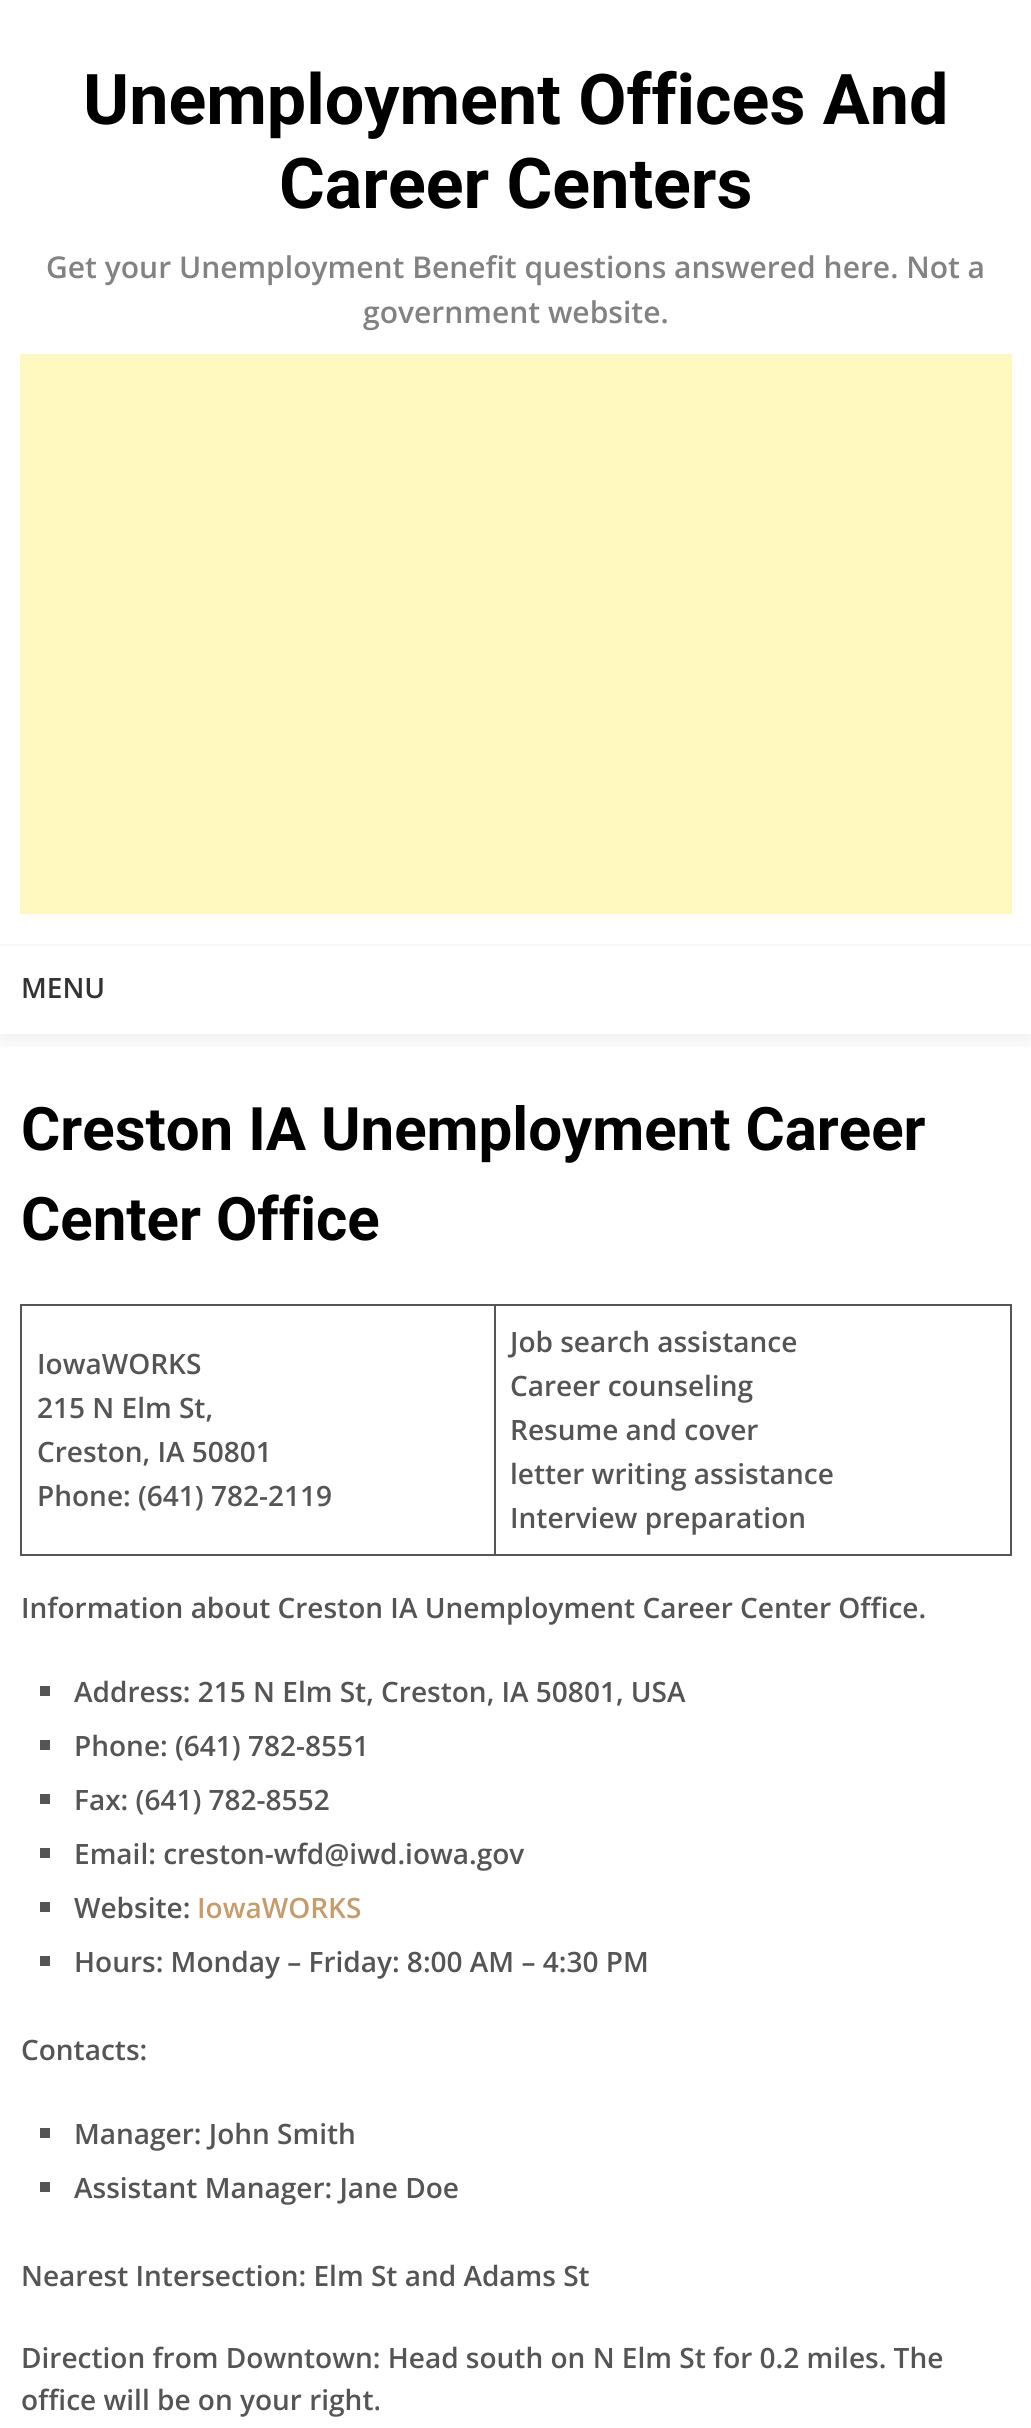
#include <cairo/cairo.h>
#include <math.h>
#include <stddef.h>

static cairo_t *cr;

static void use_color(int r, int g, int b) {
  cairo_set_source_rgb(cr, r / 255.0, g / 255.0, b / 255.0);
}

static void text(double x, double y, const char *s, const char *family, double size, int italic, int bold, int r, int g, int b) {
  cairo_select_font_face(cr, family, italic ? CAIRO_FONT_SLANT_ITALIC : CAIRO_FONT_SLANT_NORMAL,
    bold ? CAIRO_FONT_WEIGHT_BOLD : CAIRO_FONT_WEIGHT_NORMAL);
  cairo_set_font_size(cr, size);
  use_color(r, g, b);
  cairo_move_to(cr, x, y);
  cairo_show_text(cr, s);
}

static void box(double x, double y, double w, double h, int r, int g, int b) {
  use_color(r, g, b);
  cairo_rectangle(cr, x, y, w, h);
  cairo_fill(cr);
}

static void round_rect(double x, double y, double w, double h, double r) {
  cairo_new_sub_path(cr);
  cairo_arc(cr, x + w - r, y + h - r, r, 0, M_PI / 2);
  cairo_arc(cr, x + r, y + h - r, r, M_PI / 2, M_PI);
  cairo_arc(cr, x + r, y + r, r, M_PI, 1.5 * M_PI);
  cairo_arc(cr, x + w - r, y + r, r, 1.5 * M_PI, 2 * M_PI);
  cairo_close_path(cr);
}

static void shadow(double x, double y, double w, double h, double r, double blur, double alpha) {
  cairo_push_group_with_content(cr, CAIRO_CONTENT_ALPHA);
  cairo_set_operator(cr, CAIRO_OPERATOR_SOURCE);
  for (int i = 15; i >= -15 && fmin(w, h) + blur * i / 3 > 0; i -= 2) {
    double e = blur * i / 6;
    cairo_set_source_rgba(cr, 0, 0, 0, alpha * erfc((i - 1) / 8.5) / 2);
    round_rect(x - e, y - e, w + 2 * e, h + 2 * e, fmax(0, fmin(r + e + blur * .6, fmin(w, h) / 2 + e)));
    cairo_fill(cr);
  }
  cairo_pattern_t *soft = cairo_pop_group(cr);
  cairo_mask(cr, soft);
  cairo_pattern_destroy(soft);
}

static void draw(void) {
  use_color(255, 255, 255);
  cairo_paint(cr);
  cairo_save(cr);
  cairo_rectangle(cr, 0, 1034, 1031, 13);
  cairo_clip(cr);
  use_color(0, 0, 0);
  shadow(0, 0, 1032, 1034, 0, 15, 0.1);
  cairo_restore(cr);
  box(20, 354, 992, 560, 255, 249, 192);
  box(0, 944, 1031, 2, 247, 247, 247);
  box(494, 1304, 518, 2, 85, 85, 85);
  box(1010, 1304, 2, 252, 85, 85, 85);
  box(494, 1554, 518, 2, 85, 85, 85);
  box(494, 1304, 2, 252, 85, 85, 85);
  box(20, 1304, 476, 2, 85, 85, 85);
  box(20, 1554, 476, 2, 85, 85, 85);
  box(20, 1304, 2, 252, 85, 85, 85);
  box(40, 1686, 10, 10, 85, 85, 85);
  box(40, 1740, 10, 10, 85, 85, 85);
  box(40, 1794, 10, 10, 85, 85, 85);
  box(40, 1848, 10, 10, 85, 85, 85);
  box(40, 1902, 10, 10, 85, 85, 85);
  box(40, 1956, 10, 10, 85, 85, 85);
  box(40, 2128, 10, 10, 85, 85, 85);
  box(40, 2182, 10, 10, 85, 85, 85);
  text(83, 124, "Unemployment Offices And", "Roboto", 70, 0, 1, 0, 0, 0);
  text(279, 208, "Career Centers", "Roboto", 70, 0, 1, 0, 0, 0);
  text(46, 278, "Get your Unemployment Benefit questions answered here. Not a", "Open Sans SemiBold", 30, 0, 0, 130, 130, 130);
  text(363, 323, "government website.", "Open Sans SemiBold", 30, 0, 0, 130, 130, 130);
  text(21, 998, "MENU", "Open Sans SemiBold", 28, 0, 0, 51, 51, 51);
  text(21, 1150, "Creston IA Unemployment Career", "Roboto", 60, 0, 1, 0, 0, 0);
  text(21, 1240, "Center Office", "Roboto", 60, 0, 1, 0, 0, 0);
  text(37, 1374, "IowaWORKS", "Open Sans SemiBold", 28, 0, 0, 85, 85, 85);
  text(37, 1418, "215 N Elm St,", "Open Sans SemiBold", 28, 0, 0, 85, 85, 85);
  text(37, 1462, "Creston, IA 50801", "Open Sans SemiBold", 28, 0, 0, 85, 85, 85);
  text(37, 1506, "Phone: (641) 782-2119", "Open Sans SemiBold", 28, 0, 0, 85, 85, 85);
  text(510, 1352, "Job search assistance", "Open Sans SemiBold", 28, 0, 0, 85, 85, 85);
  text(510, 1396, "Career counseling", "Open Sans SemiBold", 28, 0, 0, 85, 85, 85);
  text(510, 1440, "Resume and cover", "Open Sans SemiBold", 28, 0, 0, 85, 85, 85);
  text(510, 1484, "letter writing assistance", "Open Sans SemiBold", 28, 0, 0, 85, 85, 85);
  text(510, 1528, "Interview preparation", "Open Sans SemiBold", 28, 0, 0, 85, 85, 85);
  text(21, 1618, "Information about Creston IA Unemployment Career Center Office.", "Open Sans SemiBold", 28, 0, 0, 85, 85, 85);
  text(74, 1702, "Address: 215 N Elm St, Creston, IA 50801, USA", "Open Sans SemiBold", 28, 0, 0, 85, 85, 85);
  text(74, 1756, "Phone: (641) 782-8551", "Open Sans SemiBold", 28, 0, 0, 85, 85, 85);
  text(74, 1810, "Fax: (641) 782-8552", "Open Sans SemiBold", 28, 0, 0, 85, 85, 85);
  text(74, 1864, "Email: creston-wfd@iwd.iowa.gov", "Open Sans SemiBold", 28, 0, 0, 85, 85, 85);
  text(74, 1918, "Website:", "Open Sans SemiBold", 28, 0, 0, 85, 85, 85);
  text(197, 1918, "IowaWORKS", "Open Sans SemiBold", 28, 0, 0, 198, 156, 109);
  text(74, 1972, "Hours: Monday – Friday: 8:00 AM – 4:30 PM", "Open Sans SemiBold", 28, 0, 0, 85, 85, 85);
  text(21, 2060, "Contacts:", "Open Sans SemiBold", 28, 0, 0, 85, 85, 85);
  text(74, 2144, "Manager: John Smith", "Open Sans SemiBold", 28, 0, 0, 85, 85, 85);
  text(74, 2198, "Assistant Manager: Jane Doe", "Open Sans SemiBold", 28, 0, 0, 85, 85, 85);
  text(21, 2286, "Nearest Intersection: Elm St and Adams St", "Open Sans SemiBold", 28, 0, 0, 85, 85, 85);
  text(21, 2368, "Direction from Downtown: Head south on N Elm St for 0.2 miles. The", "Open Sans SemiBold", 28, 0, 0, 85, 85, 85);
  text(21, 2410, "office will be on your right.", "Open Sans SemiBold", 28, 0, 0, 85, 85, 85);
}

int main(void) {
  cairo_surface_t *surface = cairo_image_surface_create(CAIRO_FORMAT_RGB24, 1031, 2428);
  cr = cairo_create(surface);
  cairo_font_options_t *options = cairo_font_options_create();
  cairo_font_options_set_hint_metrics(options, CAIRO_HINT_METRICS_OFF);
  cairo_font_options_set_hint_style(options, CAIRO_HINT_STYLE_NONE);
  cairo_set_font_options(cr, options);
  cairo_set_miter_limit(cr, 4);
  draw();
  cairo_surface_write_to_png(surface, "out.png");
  cairo_font_options_destroy(options);
  cairo_destroy(cr);
  cairo_surface_destroy(surface);
  return 0;
}
